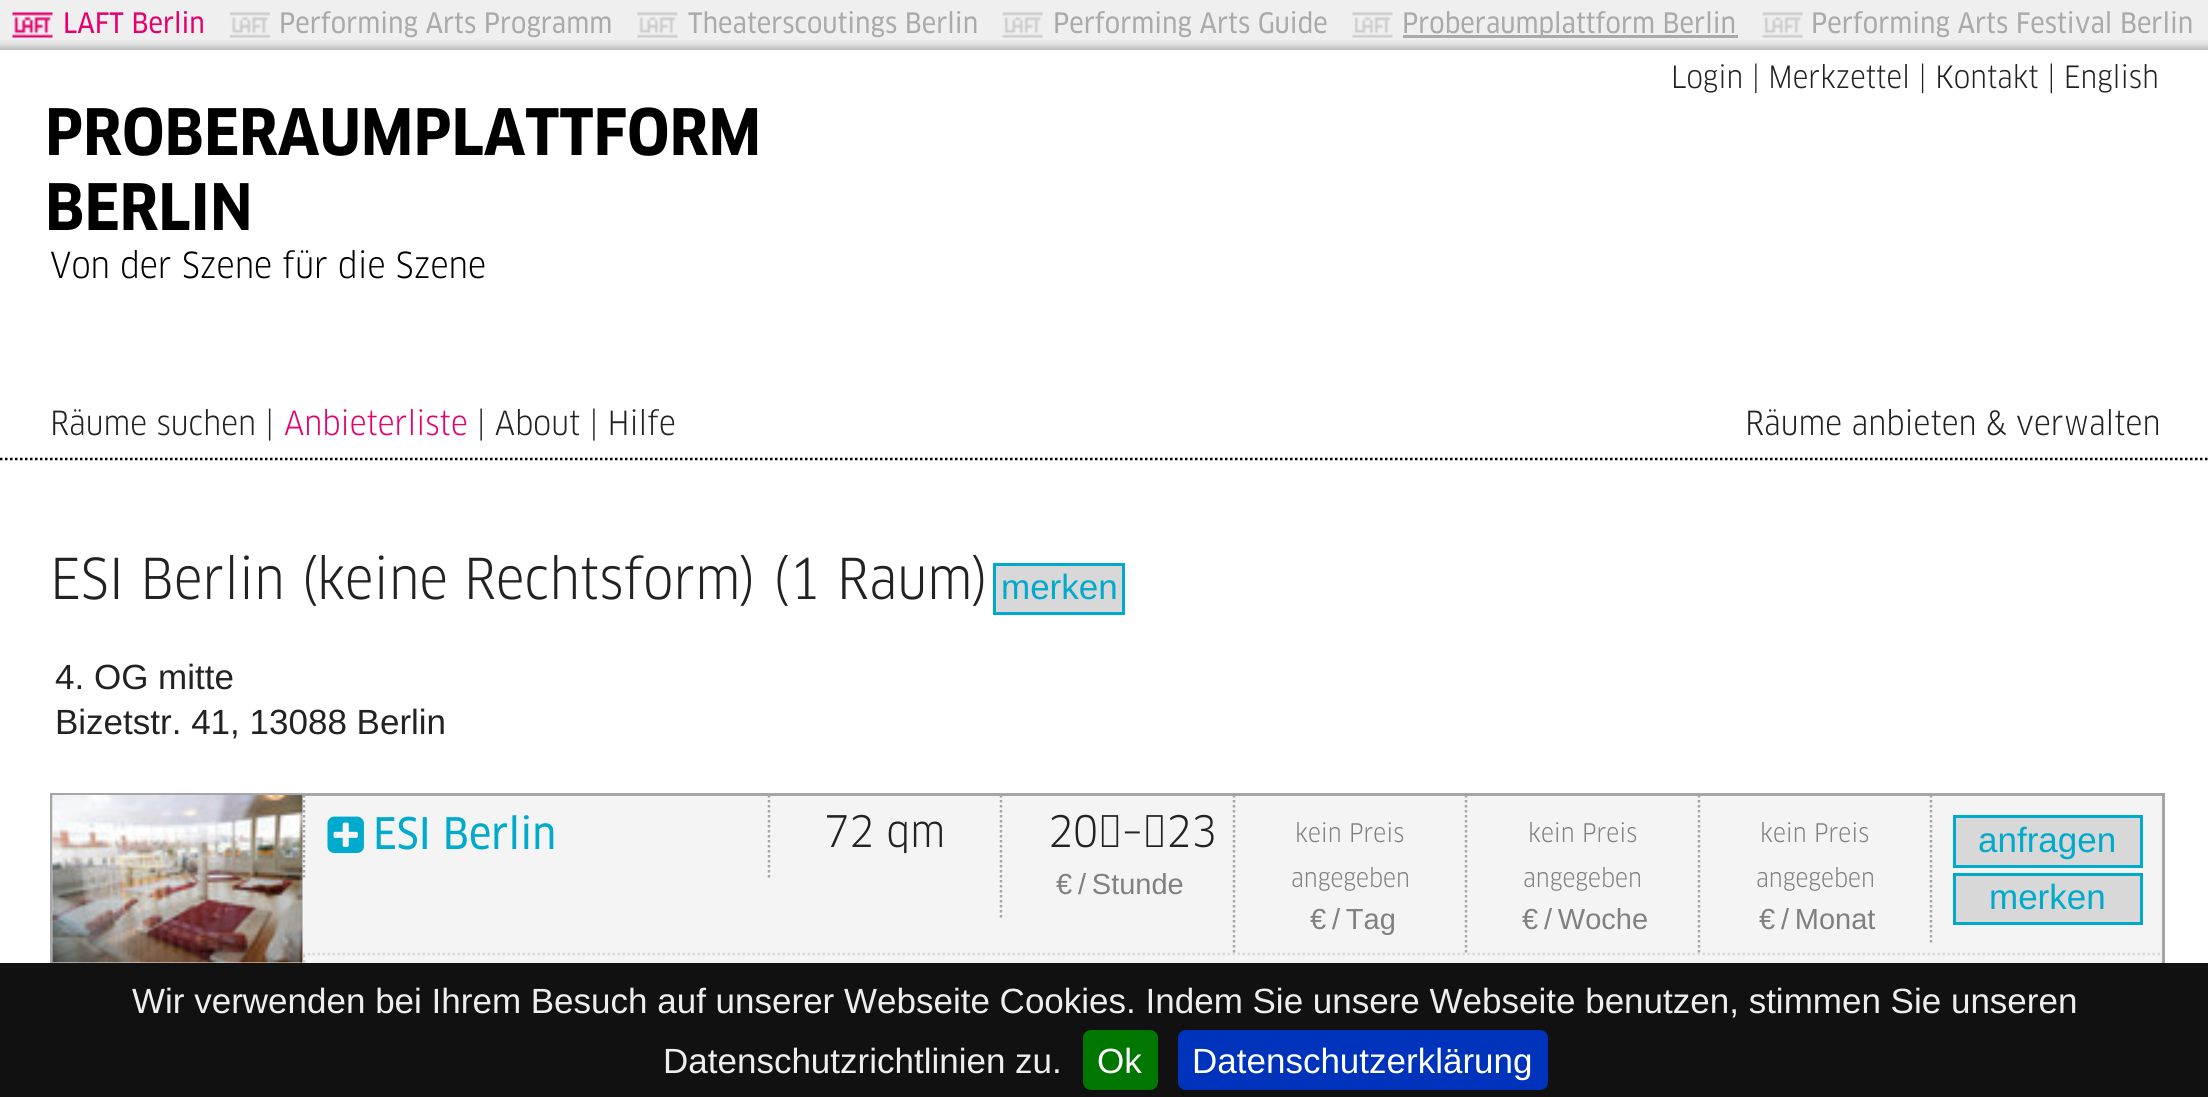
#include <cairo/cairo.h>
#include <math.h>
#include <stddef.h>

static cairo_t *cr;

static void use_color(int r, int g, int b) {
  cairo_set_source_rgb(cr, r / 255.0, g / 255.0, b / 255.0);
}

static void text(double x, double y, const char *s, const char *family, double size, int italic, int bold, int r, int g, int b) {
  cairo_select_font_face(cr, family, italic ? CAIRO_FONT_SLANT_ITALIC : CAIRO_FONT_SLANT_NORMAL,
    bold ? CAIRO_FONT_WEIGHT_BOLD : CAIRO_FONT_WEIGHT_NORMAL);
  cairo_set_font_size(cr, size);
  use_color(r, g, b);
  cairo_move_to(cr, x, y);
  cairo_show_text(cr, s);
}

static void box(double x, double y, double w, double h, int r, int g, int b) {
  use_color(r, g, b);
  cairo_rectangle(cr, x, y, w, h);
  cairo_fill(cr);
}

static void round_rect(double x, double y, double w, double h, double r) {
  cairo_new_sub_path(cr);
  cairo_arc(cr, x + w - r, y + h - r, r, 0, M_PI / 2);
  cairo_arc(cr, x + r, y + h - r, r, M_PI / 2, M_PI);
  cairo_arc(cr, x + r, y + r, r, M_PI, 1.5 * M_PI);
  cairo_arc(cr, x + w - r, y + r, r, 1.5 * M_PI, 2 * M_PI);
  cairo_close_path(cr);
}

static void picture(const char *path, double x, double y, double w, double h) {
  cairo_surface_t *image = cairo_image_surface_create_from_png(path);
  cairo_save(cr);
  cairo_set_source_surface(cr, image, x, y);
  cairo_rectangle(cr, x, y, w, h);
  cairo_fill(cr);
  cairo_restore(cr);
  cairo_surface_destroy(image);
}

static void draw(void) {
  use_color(255, 255, 255);
  cairo_paint(cr);
  box(0, 0, 2208, 40, 239, 239, 239);
  picture("img_01.png", 0, 40, 2208, 10);
  picture("img_02.png", 12, 12, 41, 26);
  picture("img_03.png", 230, 12, 40, 26);
  picture("img_04.png", 637, 12, 41, 26);
  picture("img_04.png", 1002, 12, 41, 26);
  picture("img_04.png", 1352, 12, 41, 26);
  box(1403, 35, 335, 3, 170, 170, 170);
  picture("img_04.png", 1762, 12, 41, 26);
  cairo_new_path(cr);
  cairo_move_to(cr, 0, 459);
  cairo_line_to(cr, 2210, 459);
  use_color(0, 0, 0);
  cairo_set_line_width(cr, 2.5);
  cairo_set_dash(cr, (double[]){2.5, 2.5}, 2, 0);
  cairo_stroke(cr);
  use_color(216, 216, 216);
  cairo_rectangle(cr, 994.5, 564.5, 129, 49);
  cairo_fill_preserve(cr);
  use_color(0, 170, 204);
  cairo_set_line_width(cr, 3);
  cairo_set_dash(cr, NULL, 0, 0);
  cairo_stroke(cr);
  box(53, 796, 2109, 167, 244, 244, 244);
  cairo_rectangle(cr, 51.5, 794.5, 2112, 237);
  use_color(166, 166, 166);
  cairo_stroke(cr);
  picture("img_05.png", 52, 795, 251, 168);
  picture("img_06.png", 52, 795, 251, 168);
  cairo_new_path(cr);
  cairo_move_to(cr, 304, 795);
  cairo_line_to(cr, 304, 880);
  cairo_set_line_width(cr, 2.5);
  cairo_set_dash(cr, (double[]){2.5, 2.5}, 2, 0);
  cairo_stroke(cr);
  picture("img_07.png", 327, 816, 37, 38);
  cairo_new_path(cr);
  cairo_move_to(cr, 769, 795);
  cairo_line_to(cr, 769, 880);
  cairo_stroke(cr);
  cairo_new_path(cr);
  cairo_move_to(cr, 1001, 795);
  cairo_line_to(cr, 1001, 917.5);
  cairo_stroke(cr);
  cairo_new_path(cr);
  cairo_move_to(cr, 1234, 795);
  cairo_line_to(cr, 1234, 952.5);
  cairo_stroke(cr);
  cairo_new_path(cr);
  cairo_move_to(cr, 1466, 795);
  cairo_line_to(cr, 1466, 952.5);
  cairo_stroke(cr);
  cairo_new_path(cr);
  cairo_move_to(cr, 1699, 795);
  cairo_line_to(cr, 1699, 952.5);
  cairo_stroke(cr);
  cairo_new_path(cr);
  cairo_move_to(cr, 1931, 795);
  cairo_line_to(cr, 1931, 945);
  cairo_stroke(cr);
  use_color(216, 216, 216);
  cairo_rectangle(cr, 1954.5, 816.5, 187, 50);
  cairo_fill_preserve(cr);
  use_color(0, 170, 204);
  cairo_set_line_width(cr, 3);
  cairo_set_dash(cr, NULL, 0, 0);
  cairo_stroke(cr);
  use_color(216, 216, 216);
  cairo_rectangle(cr, 1954.5, 874.5, 187, 49);
  cairo_fill_preserve(cr);
  use_color(0, 170, 204);
  cairo_stroke(cr);
  cairo_new_path(cr);
  cairo_move_to(cr, 302.5, 954);
  cairo_line_to(cr, 2162.5, 954);
  cairo_set_source_rgba(cr, 0.753, 0.753, 0.753, 0.5);
  cairo_set_line_width(cr, 2.5);
  cairo_set_dash(cr, (double[]){2.5, 2.5}, 2, 0);
  cairo_stroke(cr);
  cairo_new_path(cr);
  cairo_move_to(cr, 304, 955);
  cairo_line_to(cr, 304, 1030);
  use_color(205, 205, 205);
  cairo_stroke(cr);
  box(0, 963, 2208, 134, 17, 17, 17);
  use_color(0, 119, 0);
  round_rect(1083, 1030, 75, 60, 8);
  cairo_fill(cr);
  use_color(0, 51, 187);
  round_rect(1178, 1030, 370, 60, 8);
  cairo_fill(cr);
  text(63, 33, "LAFT Berlin", "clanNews", 27.5, 0, 0, 229, 0, 109);
  text(279, 33, "Performing Arts Programm", "clanNews", 27.5, 0, 0, 170, 170, 170);
  text(688, 33, "Theaterscoutings Berlin", "clanNews", 27.5, 0, 0, 170, 170, 170);
  text(1053, 33, "Performing Arts Guide", "clanNews", 27.5, 0, 0, 170, 170, 170);
  text(1402, 33, "Proberaumplattform Berlin", "clanNews", 27.5, 0, 0, 170, 170, 170);
  text(1811, 33, "Performing Arts Festival Berlin", "clanNews", 27.5, 0, 0, 170, 170, 170);
  text(1671, 88, "Login | Merkzettel | Kontakt | English", "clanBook", 30, 0, 0, 34, 34, 34);
  text(45, 155, "PROBERAUMPLATTFORM", "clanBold", 62.5, 0, 1, 0, 0, 0);
  text(45, 230, "BERLIN", "clanBold", 62.5, 0, 1, 0, 0, 0);
  text(50, 278, "Von der Szene für die Szene", "clanBook", 35, 0, 0, 0, 0, 0);
  text(50, 435, "Räume suchen |", "clanBook", 32.5, 0, 0, 34, 34, 34);
  text(284, 435, "Anbieterliste", "clanBook", 32.5, 0, 0, 229, 0, 109);
  text(477, 435, "| About | Hilfe", "clanBook", 32.5, 0, 0, 34, 34, 34);
  text(1745, 435, "Räume anbieten & verwalten", "clanBook", 32.5, 0, 0, 34, 34, 34);
  text(50, 599, "ESI Berlin (keine Rechtsform) (1 Raum)", "clanBook", 55, 0, 0, 34, 34, 34);
  text(1001, 599, "merken", "Liberation Sans", 35, 0, 0, 0, 170, 204);
  text(55, 689, "4. OG mitte", "Liberation Sans", 35, 0, 0, 34, 34, 34);
  text(55, 734, "Bizetstr. 41, 13088 Berlin", "Liberation Sans", 35, 0, 0, 34, 34, 34);
  text(373, 849, "ESI Berlin", "clanNews", 42.5, 0, 0, 0, 170, 204);
  text(824, 847, "72 qm", "clanBook", 42.5, 0, 0, 34, 34, 34);
  text(1048, 847, "20 – 23", "clanBook", 42.5, 0, 0, 34, 34, 34);
  text(1056, 894, "€ / Stunde", "Liberation Sans", 29, 0, 0, 128, 128, 128);
  text(1295, 842, "kein Preis", "clanBook", 25, 0, 0, 128, 128, 128);
  text(1291, 887, "angegeben", "clanBook", 25, 0, 0, 128, 128, 128);
  text(1310, 929, "€ / Tag", "Liberation Sans", 29, 0, 0, 128, 128, 128);
  text(1528, 842, "kein Preis", "clanBook", 25, 0, 0, 128, 128, 128);
  text(1523, 887, "angegeben", "clanBook", 25, 0, 0, 128, 128, 128);
  text(1522, 929, "€ / Woche", "Liberation Sans", 29, 0, 0, 128, 128, 128);
  text(1760, 842, "kein Preis", "clanBook", 25, 0, 0, 128, 128, 128);
  text(1756, 887, "angegeben", "clanBook", 25, 0, 0, 128, 128, 128);
  text(1759, 929, "€ / Monat", "Liberation Sans", 29, 0, 0, 128, 128, 128);
  text(1978, 852, "anfragen", "Liberation Sans", 35, 0, 0, 0, 170, 204);
  text(1989, 909, "merken", "Liberation Sans", 35, 0, 0, 0, 170, 204);
  text(132, 1013, "Wir verwenden bei Ihrem Besuch auf unserer Webseite Cookies. Indem Sie unsere Webseite benutzen, stimmen Sie unseren", "Liberation Sans", 35, 0, 0, 238, 238, 238);
  text(663, 1073, "Datenschutzrichtlinien zu.", "Liberation Sans", 35, 0, 0, 238, 238, 238);
  text(1097, 1073, "Ok", "Liberation Sans", 35, 0, 0, 255, 255, 255);
  text(1192, 1073, "Datenschutzerklärung", "Liberation Sans", 35, 0, 0, 255, 255, 255);
}

int main(void) {
  cairo_surface_t *surface = cairo_image_surface_create(CAIRO_FORMAT_RGB24, 2208, 1097);
  cr = cairo_create(surface);
  cairo_font_options_t *options = cairo_font_options_create();
  cairo_font_options_set_hint_metrics(options, CAIRO_HINT_METRICS_OFF);
  cairo_font_options_set_hint_style(options, CAIRO_HINT_STYLE_NONE);
  cairo_set_font_options(cr, options);
  cairo_set_miter_limit(cr, 4);
  draw();
  cairo_surface_write_to_png(surface, "out.png");
  cairo_font_options_destroy(options);
  cairo_destroy(cr);
  cairo_surface_destroy(surface);
  return 0;
}
